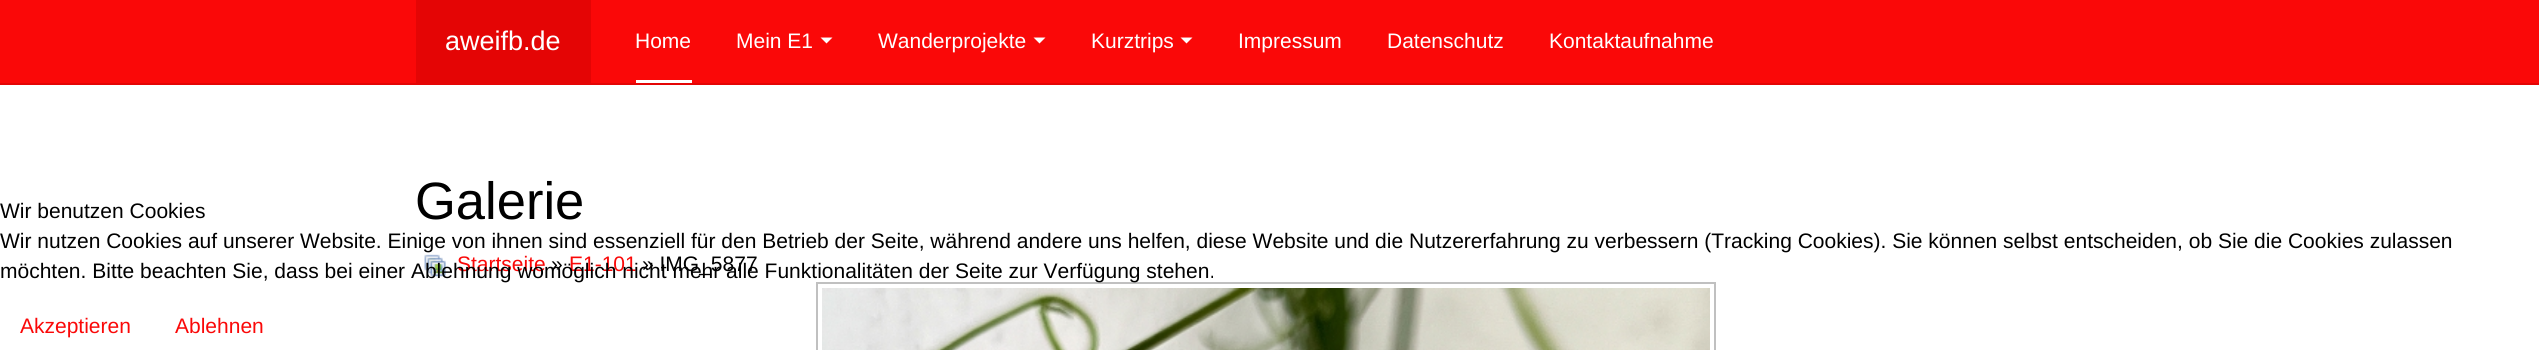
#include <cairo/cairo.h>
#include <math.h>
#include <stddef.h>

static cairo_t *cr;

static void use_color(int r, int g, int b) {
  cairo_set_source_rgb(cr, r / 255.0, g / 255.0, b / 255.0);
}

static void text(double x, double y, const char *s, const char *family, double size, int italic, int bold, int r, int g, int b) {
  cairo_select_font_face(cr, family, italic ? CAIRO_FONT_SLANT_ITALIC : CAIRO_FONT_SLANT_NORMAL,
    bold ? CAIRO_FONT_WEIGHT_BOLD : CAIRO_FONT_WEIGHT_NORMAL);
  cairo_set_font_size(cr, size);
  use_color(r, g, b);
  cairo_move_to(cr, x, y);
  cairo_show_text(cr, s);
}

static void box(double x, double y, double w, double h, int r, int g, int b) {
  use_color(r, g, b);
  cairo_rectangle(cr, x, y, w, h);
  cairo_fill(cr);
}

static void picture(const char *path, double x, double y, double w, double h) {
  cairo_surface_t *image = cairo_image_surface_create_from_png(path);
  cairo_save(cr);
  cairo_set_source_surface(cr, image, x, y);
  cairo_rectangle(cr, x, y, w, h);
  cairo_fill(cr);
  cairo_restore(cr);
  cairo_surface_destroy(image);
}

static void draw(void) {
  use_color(255, 255, 255);
  cairo_paint(cr);
  box(0, 0, 2539, 83, 250, 8, 8);
  box(0, 83, 2539, 2, 228, 5, 5);
  box(416, 0, 175, 83, 228, 5, 5);
  box(636, 80, 56, 3, 255, 255, 255);
  cairo_new_path(cr);
  cairo_move_to(cr, 820.5, 37.5);
  cairo_line_to(cr, 832.5, 37.5);
  cairo_line_to(cr, 826.5, 43.5);
  cairo_close_path(cr);
  cairo_fill(cr);
  cairo_new_path(cr);
  cairo_move_to(cr, 1033.5, 37.5);
  cairo_line_to(cr, 1045.5, 37.5);
  cairo_line_to(cr, 1039.5, 43.5);
  cairo_close_path(cr);
  cairo_fill(cr);
  cairo_new_path(cr);
  cairo_move_to(cr, 1180.5, 37.5);
  cairo_line_to(cr, 1192.5, 37.5);
  cairo_line_to(cr, 1186.5, 43.5);
  cairo_close_path(cr);
  cairo_fill(cr);
  picture("img_01.png", 424, 254, 22, 23);
  cairo_rectangle(cr, 817, 283, 898, 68);
  use_color(192, 192, 192);
  cairo_stroke(cr);
  picture("img_02.png", 822, 288, 888, 62);
  text(445, 50, "aweifb.de", "Liberation Sans", 27, 0, 0, 255, 255, 255);
  text(635, 48, "Home", "Liberation Sans", 21, 0, 0, 255, 255, 255);
  text(736, 48, "Mein E1", "Liberation Sans", 21, 0, 0, 255, 255, 255);
  text(878, 48, "Wanderprojekte", "Liberation Sans", 21, 0, 0, 255, 255, 255);
  text(1091, 48, "Kurztrips", "Liberation Sans", 21, 0, 0, 255, 255, 255);
  text(1238, 48, "Impressum", "Liberation Sans", 21, 0, 0, 255, 255, 255);
  text(1387, 48, "Datenschutz", "Liberation Sans", 21, 0, 0, 255, 255, 255);
  text(1549, 48, "Kontaktaufnahme", "Liberation Sans", 21, 0, 0, 255, 255, 255);
  text(415, 219, "Galerie", "Liberation Sans", 52.5, 0, 0, 0, 0, 0);
  text(457, 271, "Startseite", "Liberation Sans", 21, 0, 0, 250, 8, 8);
  text(551, 271, "»", "Liberation Sans", 21, 0, 0, 0, 0, 0);
  text(569, 271, "E1-101", "Liberation Sans", 21, 0, 0, 250, 8, 8);
  text(642, 271, "» IMG_5877", "Liberation Sans", 21, 0, 0, 0, 0, 0);
  text(0, 218, "Wir benutzen Cookies", "Liberation Sans", 21, 0, 0, 0, 0, 0);
  text(0, 248, "Wir nutzen Cookies auf unserer Website. Einige von ihnen sind essenziell für den Betrieb der Seite, während andere uns helfen, diese Website und die Nutzererfahrung zu verbessern (Tracking Cookies). Sie können selbst entscheiden, ob Sie die Cookies zulassen", "Liberation Sans", 21, 0, 0, 0, 0, 0);
  text(0, 278, "möchten. Bitte beachten Sie, dass bei einer Ablehnung womöglich nicht mehr alle Funktionalitäten der Seite zur Verfügung stehen.", "Liberation Sans", 21, 0, 0, 0, 0, 0);
  text(20, 333, "Akzeptieren", "Liberation Sans", 21, 0, 0, 250, 8, 8);
  text(175, 333, "Ablehnen", "Liberation Sans", 21, 0, 0, 250, 8, 8);
}

int main(void) {
  cairo_surface_t *surface = cairo_image_surface_create(CAIRO_FORMAT_RGB24, 2539, 350);
  cr = cairo_create(surface);
  cairo_font_options_t *options = cairo_font_options_create();
  cairo_font_options_set_hint_metrics(options, CAIRO_HINT_METRICS_OFF);
  cairo_font_options_set_hint_style(options, CAIRO_HINT_STYLE_NONE);
  cairo_set_font_options(cr, options);
  cairo_set_miter_limit(cr, 4);
  draw();
  cairo_surface_write_to_png(surface, "out.png");
  cairo_font_options_destroy(options);
  cairo_destroy(cr);
  cairo_surface_destroy(surface);
  return 0;
}
